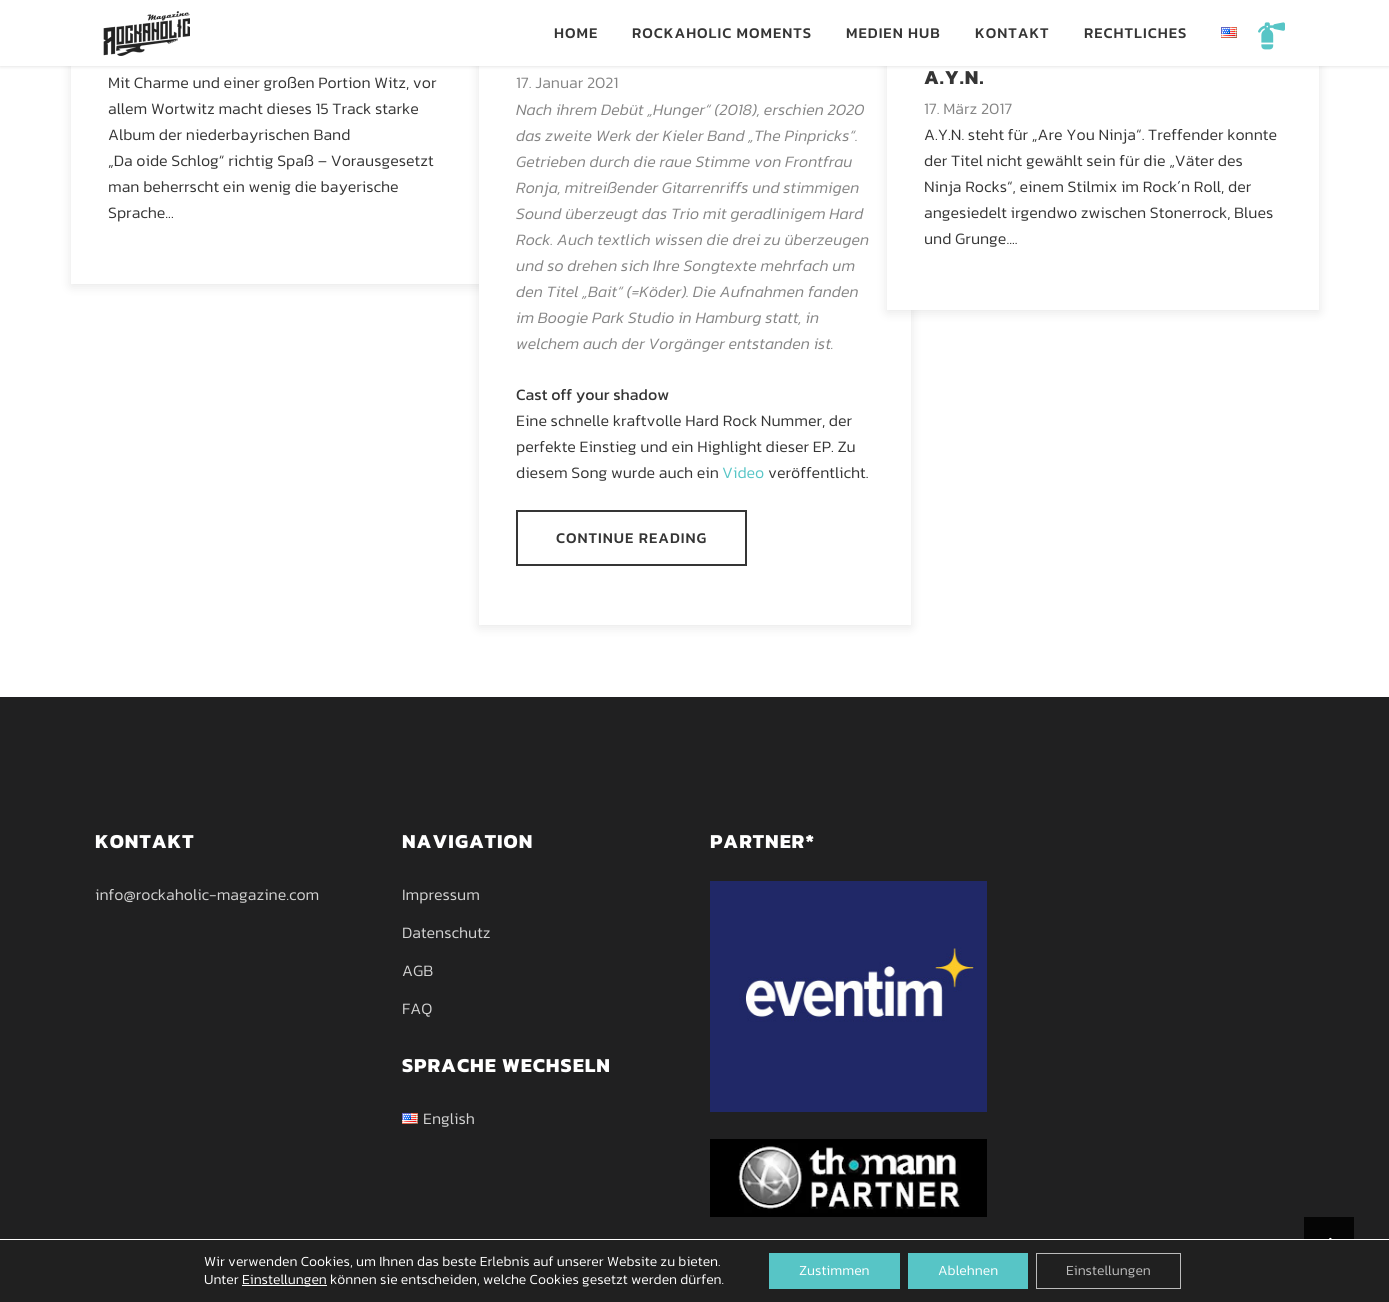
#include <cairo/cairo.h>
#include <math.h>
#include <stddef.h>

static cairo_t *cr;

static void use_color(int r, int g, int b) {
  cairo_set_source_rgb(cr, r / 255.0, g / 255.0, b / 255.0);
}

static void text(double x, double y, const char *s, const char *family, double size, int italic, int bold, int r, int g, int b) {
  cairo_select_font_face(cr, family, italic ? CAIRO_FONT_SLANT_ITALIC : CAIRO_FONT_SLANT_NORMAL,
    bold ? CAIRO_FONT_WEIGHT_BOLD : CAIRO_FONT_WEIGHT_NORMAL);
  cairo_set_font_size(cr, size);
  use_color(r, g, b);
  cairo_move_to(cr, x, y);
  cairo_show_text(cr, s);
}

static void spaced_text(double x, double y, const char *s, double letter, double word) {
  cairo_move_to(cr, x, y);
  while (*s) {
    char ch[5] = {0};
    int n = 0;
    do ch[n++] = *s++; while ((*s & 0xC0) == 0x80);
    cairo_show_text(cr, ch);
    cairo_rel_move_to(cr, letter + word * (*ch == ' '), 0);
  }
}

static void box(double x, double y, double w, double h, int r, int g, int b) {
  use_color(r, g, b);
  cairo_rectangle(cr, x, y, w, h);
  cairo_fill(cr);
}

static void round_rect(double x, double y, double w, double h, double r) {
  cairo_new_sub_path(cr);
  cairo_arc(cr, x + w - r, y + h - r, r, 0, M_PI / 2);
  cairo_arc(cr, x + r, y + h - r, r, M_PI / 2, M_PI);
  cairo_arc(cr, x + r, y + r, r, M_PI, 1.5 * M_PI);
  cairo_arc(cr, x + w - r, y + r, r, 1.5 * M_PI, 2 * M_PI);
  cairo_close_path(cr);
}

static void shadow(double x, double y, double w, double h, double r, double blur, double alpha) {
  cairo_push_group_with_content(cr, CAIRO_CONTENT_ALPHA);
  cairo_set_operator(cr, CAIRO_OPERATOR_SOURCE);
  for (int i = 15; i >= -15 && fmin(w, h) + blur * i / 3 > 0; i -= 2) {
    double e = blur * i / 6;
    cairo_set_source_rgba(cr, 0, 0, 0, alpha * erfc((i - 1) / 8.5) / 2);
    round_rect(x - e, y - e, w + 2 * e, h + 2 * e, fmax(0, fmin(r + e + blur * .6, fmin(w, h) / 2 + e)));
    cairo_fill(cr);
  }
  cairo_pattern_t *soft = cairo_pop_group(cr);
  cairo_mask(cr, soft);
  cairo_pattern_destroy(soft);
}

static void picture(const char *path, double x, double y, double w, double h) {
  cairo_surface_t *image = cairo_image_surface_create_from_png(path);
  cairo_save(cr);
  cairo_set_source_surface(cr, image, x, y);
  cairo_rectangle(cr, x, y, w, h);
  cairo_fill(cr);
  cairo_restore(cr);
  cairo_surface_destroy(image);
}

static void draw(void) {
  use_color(255, 255, 255);
  cairo_paint(cr);
  cairo_save(cr);
  cairo_set_fill_rule(cr, CAIRO_FILL_RULE_EVEN_ODD);
  cairo_new_path(cr);
  cairo_move_to(cr, 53, 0);
  cairo_line_to(cr, 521, 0);
  cairo_line_to(cr, 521, 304);
  cairo_line_to(cr, 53, 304);
  cairo_close_path(cr);
  cairo_move_to(cr, 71, -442);
  cairo_line_to(cr, 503, -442);
  cairo_line_to(cr, 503, 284);
  cairo_line_to(cr, 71, 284);
  cairo_close_path(cr);
  cairo_clip(cr);
  use_color(0, 0, 0);
  shadow(71, -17, 432, 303, 0, 5.5, 0.1);
  cairo_restore(cr);
  use_color(0, 0, 0);
  shadow(479, -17, 432, 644, 0, 5.5, 0.1);
  box(479, 66, 432, 559, 255, 255, 255);
  use_color(0, 0, 0);
  shadow(887, -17, 432, 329, 0, 5.5, 0.1);
  box(887, 66, 432, 244, 255, 255, 255);
  use_color(57, 57, 57);
  shadow(0, 0, 1389, 66, 0, 2, 0.2);
  box(0, 0, 1389, 66, 255, 255, 255);
  picture("img_01.png", 103, 11, 87, 45);
  picture("img_02.png", 1221, 27, 16, 11);
  picture("img_03.png", 1258, 22, 27, 28);
  cairo_rectangle(cr, 517, 511, 229, 54);
  use_color(53, 53, 53);
  cairo_stroke(cr);
  box(0, 697, 1389, 542, 32, 32, 33);
  picture("img_02.png", 402, 1113, 16, 11);
  picture("img_04.png", 710, 881, 277, 231);
  picture("img_05.png", 710, 1139, 277, 78);
  box(1304, 1217, 50, 22, 5, 5, 5);
  picture("img_06.png", 1329, 1237, 3, 2);
  box(0, 1240, 1389, 62, 32, 32, 32);
  box(242, 1285, 85, 1, 255, 255, 255);
  box(769, 1253, 131, 36, 87, 197, 198);
  box(908, 1253, 120, 36, 87, 197, 198);
  cairo_rectangle(cr, 1036.5, 1253.5, 144, 35);
  use_color(188, 188, 188);
  cairo_set_line_width(cr, 1);
  cairo_stroke(cr);
  cairo_select_font_face(cr, "Kanit Medium", CAIRO_FONT_SLANT_NORMAL, CAIRO_FONT_WEIGHT_NORMAL);
  cairo_set_font_size(cr, 15);
  use_color(53, 53, 53);
  spaced_text(554, 38, "HOME", 1, 0);
  spaced_text(632, 38, "ROCKAHOLIC MOMENTS", 1, 0);
  spaced_text(846, 38, "MEDIEN HUB", 1, 0);
  spaced_text(975, 38, "KONTAKT", 1, 0);
  spaced_text(1084, 38, "RECHTLICHES", 1, 0);
  text(108, 88, "Mit Charme und einer großen Portion Witz, vor", "Kanit Light", 16, 0, 0, 53, 53, 53);
  text(108, 114, "allem Wortwitz macht dieses 15 Track starke", "Kanit Light", 16, 0, 0, 53, 53, 53);
  text(108, 140, "Album der niederbayrischen Band", "Kanit Light", 16, 0, 0, 53, 53, 53);
  text(108, 166, "„Da oide Schlog“ richtig Spaß – Vorausgesetzt", "Kanit Light", 16, 0, 0, 53, 53, 53);
  text(108, 192, "man beherrscht ein wenig die bayerische", "Kanit Light", 16, 0, 0, 53, 53, 53);
  text(108, 218, "Sprache...", "Kanit Light", 16, 0, 0, 53, 53, 53);
  text(516, 88, "17. Januar 2021", "Kanit Light", 16, 0, 0, 133, 133, 133);
  text(516, 115, "Nach ihrem Debüt „Hunger“ (2018), erschien 2020", "Kanit Light", 16, 1, 0, 133, 133, 133);
  text(516, 141, "das zweite Werk der Kieler Band „The Pinpricks“.", "Kanit Light", 16, 1, 0, 133, 133, 133);
  text(516, 167, "Getrieben durch die raue Stimme von Frontfrau", "Kanit Light", 16, 1, 0, 133, 133, 133);
  text(516, 193, "Ronja, mitreißender Gitarrenriffs und stimmigen", "Kanit Light", 16, 1, 0, 133, 133, 133);
  text(516, 219, "Sound überzeugt das Trio mit geradlinigem Hard", "Kanit Light", 16, 1, 0, 133, 133, 133);
  text(516, 245, "Rock. Auch textlich wissen die drei zu überzeugen", "Kanit Light", 16, 1, 0, 133, 133, 133);
  text(516, 271, "und so drehen sich Ihre Songtexte mehrfach um", "Kanit Light", 16, 1, 0, 133, 133, 133);
  text(516, 297, "den Titel „Bait“ (=Köder). Die Aufnahmen fanden", "Kanit Light", 16, 1, 0, 133, 133, 133);
  text(516, 323, "im Boogie Park Studio in Hamburg statt, in", "Kanit Light", 16, 1, 0, 133, 133, 133);
  text(516, 349, "welchem auch der Vorgänger entstanden ist.", "Kanit Light", 16, 1, 0, 133, 133, 133);
  text(516, 400, "Cast off your shadow", "Kanit", 16, 0, 0, 53, 53, 53);
  text(516, 426, "Eine schnelle kraftvolle Hard Rock Nummer, der", "Kanit Light", 16, 0, 0, 53, 53, 53);
  text(516, 452, "perfekte Einstieg und ein Highlight dieser EP. Zu", "Kanit Light", 16, 0, 0, 53, 53, 53);
  text(516, 478, "diesem Song wurde auch ein", "Kanit Light", 16, 0, 0, 53, 53, 53);
  text(722, 478, "Video", "Kanit Light", 16, 0, 0, 87, 197, 198);
  text(768, 478, "veröffentlicht.", "Kanit Light", 16, 0, 0, 53, 53, 53);
  cairo_select_font_face(cr, "Kanit Medium", CAIRO_FONT_SLANT_NORMAL, CAIRO_FONT_WEIGHT_NORMAL);
  cairo_set_font_size(cr, 15);
  spaced_text(556, 543, "CONTINUE READING", 1, 0);
  cairo_select_font_face(cr, "Kanit", CAIRO_FONT_SLANT_NORMAL, CAIRO_FONT_WEIGHT_BOLD);
  cairo_set_font_size(cr, 20);
  spaced_text(924, 84, "A.Y.N.", 1, 0);
  text(924, 114, "17. März 2017", "Kanit Light", 16, 0, 0, 133, 133, 133);
  text(924, 140, "A.Y.N. steht für „Are You Ninja“. Treffender konnte", "Kanit Light", 16, 0, 0, 53, 53, 53);
  text(924, 166, "der Titel nicht gewählt sein für die „Väter des", "Kanit Light", 16, 0, 0, 53, 53, 53);
  text(924, 192, "Ninja Rocks“, einem Stilmix im Rock´n Roll, der", "Kanit Light", 16, 0, 0, 53, 53, 53);
  text(924, 218, "angesiedelt irgendwo zwischen Stonerrock, Blues", "Kanit Light", 16, 0, 0, 53, 53, 53);
  text(924, 244, "und Grunge....", "Kanit Light", 16, 0, 0, 53, 53, 53);
  cairo_select_font_face(cr, "Kanit", CAIRO_FONT_SLANT_NORMAL, CAIRO_FONT_WEIGHT_BOLD);
  cairo_set_font_size(cr, 20);
  use_color(255, 255, 255);
  spaced_text(95, 848, "KONTAKT", 1, 0);
  text(95, 900, "info@rockaholic-magazine.com", "Kanit Light", 16, 0, 0, 210, 210, 210);
  cairo_select_font_face(cr, "Kanit", CAIRO_FONT_SLANT_NORMAL, CAIRO_FONT_WEIGHT_BOLD);
  cairo_set_font_size(cr, 20);
  use_color(255, 255, 255);
  spaced_text(402, 848, "NAVIGATION", 1, 0);
  text(402, 900, "Impressum", "Kanit Light", 16, 0, 0, 210, 210, 210);
  text(402, 938, "Datenschutz", "Kanit Light", 16, 0, 0, 210, 210, 210);
  text(402, 976, "AGB", "Kanit Light", 16, 0, 0, 210, 210, 210);
  text(402, 1014, "FAQ", "Kanit Light", 16, 0, 0, 210, 210, 210);
  cairo_select_font_face(cr, "Kanit", CAIRO_FONT_SLANT_NORMAL, CAIRO_FONT_WEIGHT_BOLD);
  cairo_set_font_size(cr, 20);
  use_color(255, 255, 255);
  spaced_text(402, 1072, "SPRACHE WECHSELN", 1, 0);
  text(423, 1124, "English", "Kanit Light", 16, 0, 0, 210, 210, 210);
  cairo_select_font_face(cr, "Kanit", CAIRO_FONT_SLANT_NORMAL, CAIRO_FONT_WEIGHT_BOLD);
  cairo_set_font_size(cr, 20);
  use_color(255, 255, 255);
  spaced_text(710, 848, "PARTNER*", 1, 0);
  text(204, 1266, "Wir verwenden Cookies, um Ihnen das beste Erlebnis auf unserer Website zu bieten.", "Kanit Light", 14, 0, 0, 255, 255, 255);
  text(204, 1284, "Unter", "Kanit Light", 14, 0, 0, 255, 255, 255);
  text(242, 1284, "Einstellungen können sie entscheiden, welche Cookies gesetzt werden dürfen.", "Kanit Light", 14, 0, 0, 255, 255, 255);
  text(799, 1275, "Zustimmen", "Kanit Light", 14, 0, 0, 255, 255, 255);
  text(938, 1275, "Ablehnen", "Kanit Light", 14, 0, 0, 255, 255, 255);
  text(1066, 1275, "Einstellungen", "Kanit Light", 14, 0, 0, 188, 188, 188);
}

int main(void) {
  cairo_surface_t *surface = cairo_image_surface_create(CAIRO_FORMAT_RGB24, 1389, 1302);
  cr = cairo_create(surface);
  cairo_font_options_t *options = cairo_font_options_create();
  cairo_font_options_set_hint_metrics(options, CAIRO_HINT_METRICS_OFF);
  cairo_font_options_set_hint_style(options, CAIRO_HINT_STYLE_NONE);
  cairo_set_font_options(cr, options);
  cairo_set_miter_limit(cr, 4);
  draw();
  cairo_surface_write_to_png(surface, "out.png");
  cairo_font_options_destroy(options);
  cairo_destroy(cr);
  cairo_surface_destroy(surface);
  return 0;
}
